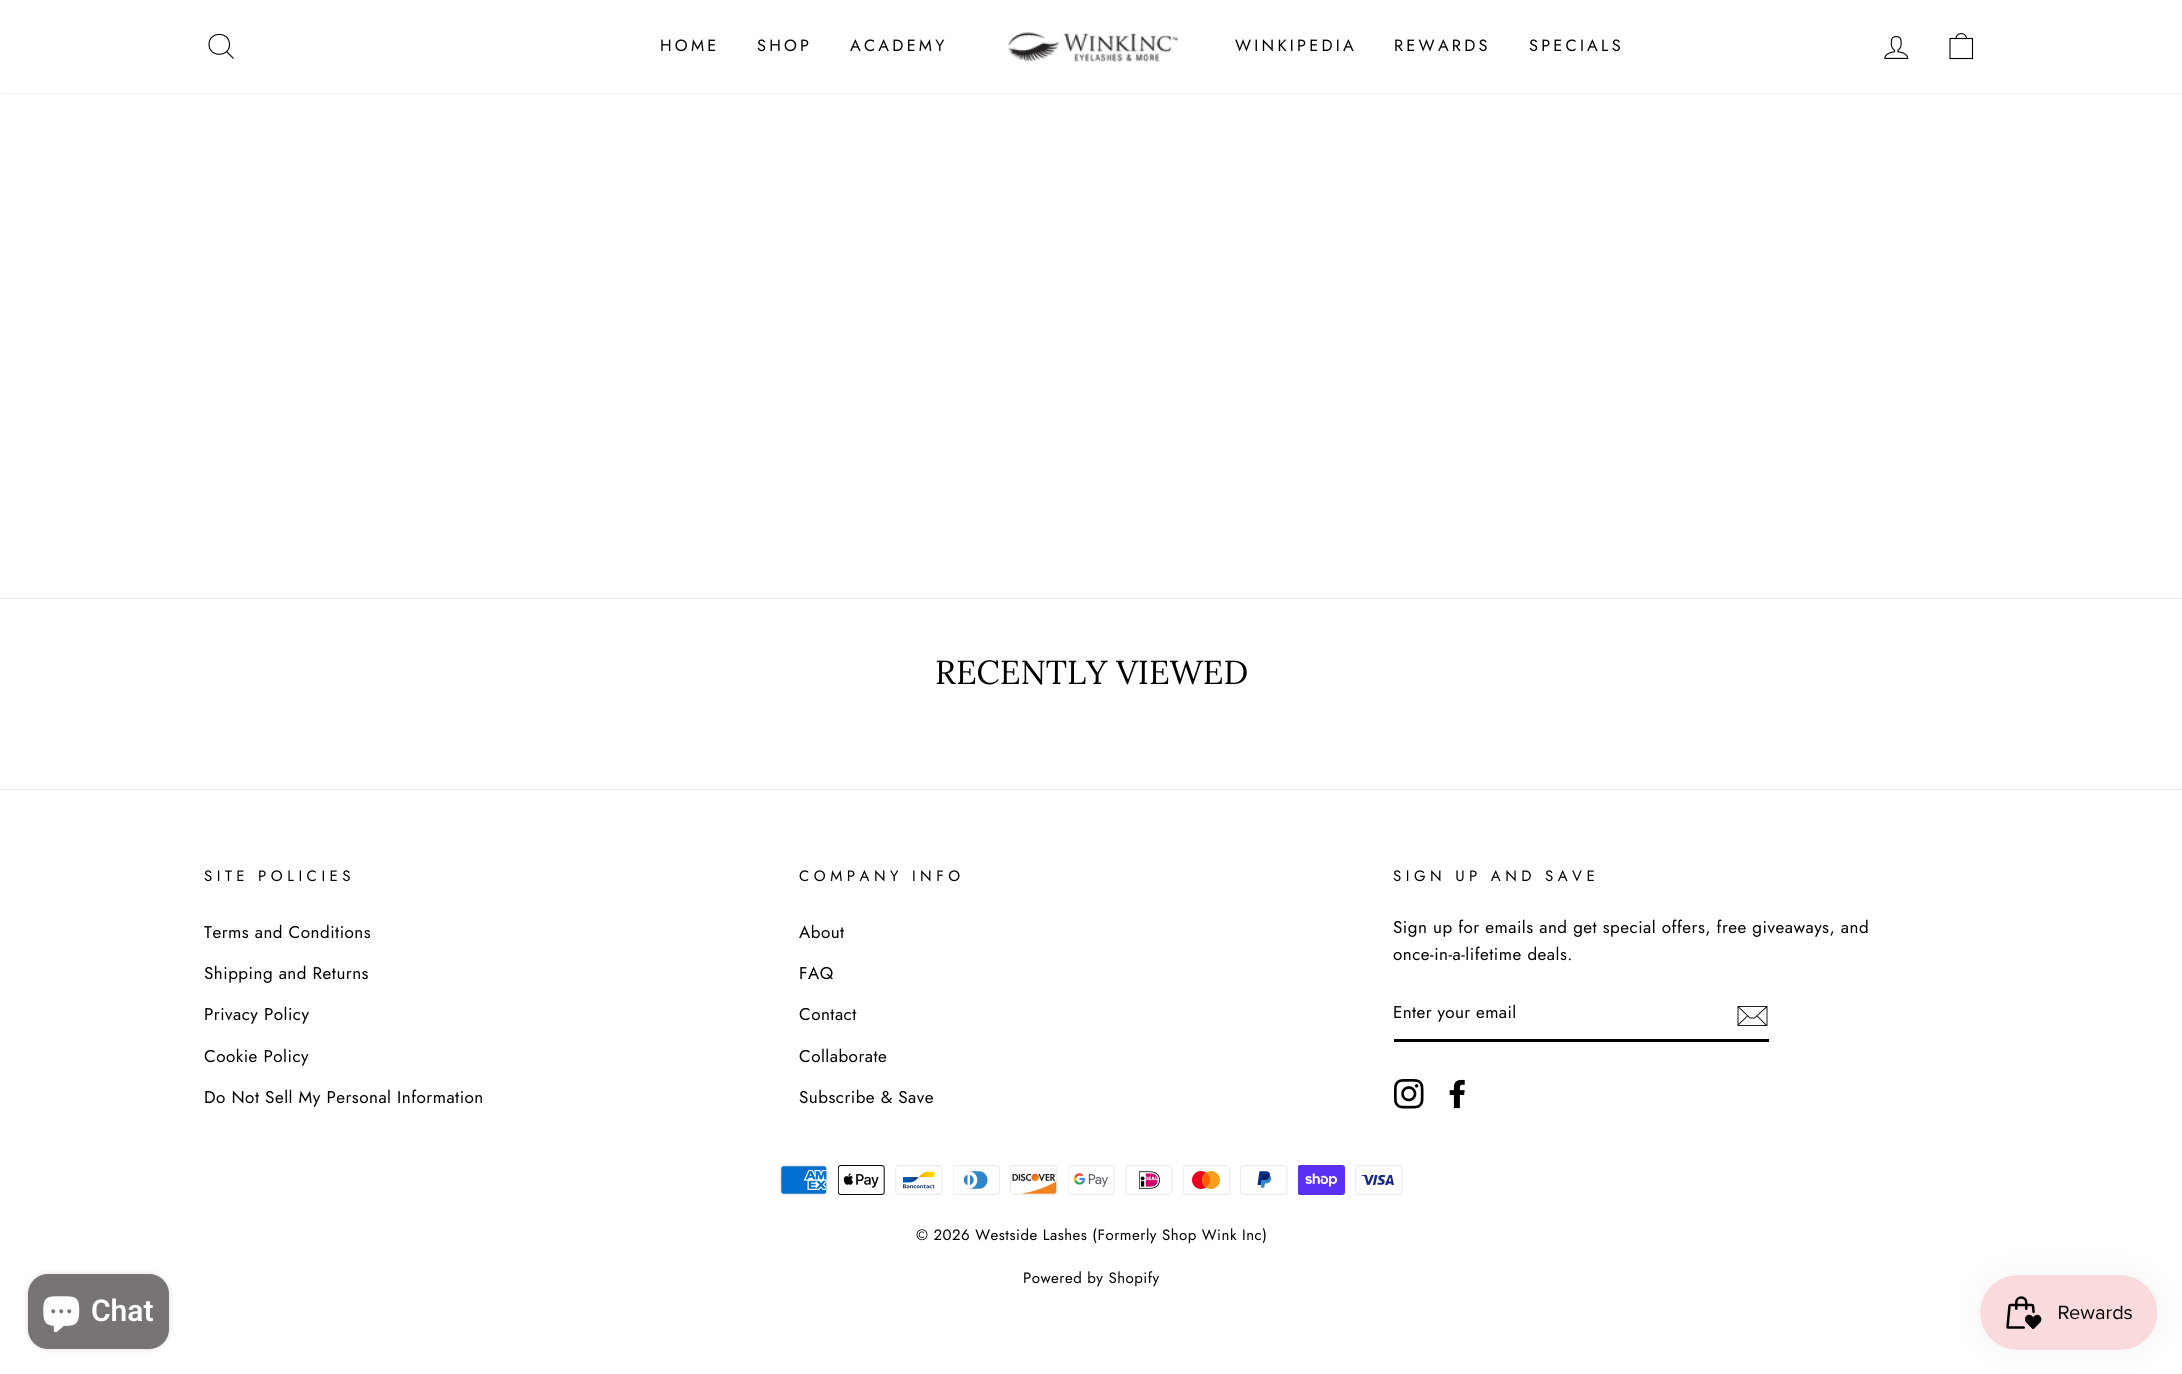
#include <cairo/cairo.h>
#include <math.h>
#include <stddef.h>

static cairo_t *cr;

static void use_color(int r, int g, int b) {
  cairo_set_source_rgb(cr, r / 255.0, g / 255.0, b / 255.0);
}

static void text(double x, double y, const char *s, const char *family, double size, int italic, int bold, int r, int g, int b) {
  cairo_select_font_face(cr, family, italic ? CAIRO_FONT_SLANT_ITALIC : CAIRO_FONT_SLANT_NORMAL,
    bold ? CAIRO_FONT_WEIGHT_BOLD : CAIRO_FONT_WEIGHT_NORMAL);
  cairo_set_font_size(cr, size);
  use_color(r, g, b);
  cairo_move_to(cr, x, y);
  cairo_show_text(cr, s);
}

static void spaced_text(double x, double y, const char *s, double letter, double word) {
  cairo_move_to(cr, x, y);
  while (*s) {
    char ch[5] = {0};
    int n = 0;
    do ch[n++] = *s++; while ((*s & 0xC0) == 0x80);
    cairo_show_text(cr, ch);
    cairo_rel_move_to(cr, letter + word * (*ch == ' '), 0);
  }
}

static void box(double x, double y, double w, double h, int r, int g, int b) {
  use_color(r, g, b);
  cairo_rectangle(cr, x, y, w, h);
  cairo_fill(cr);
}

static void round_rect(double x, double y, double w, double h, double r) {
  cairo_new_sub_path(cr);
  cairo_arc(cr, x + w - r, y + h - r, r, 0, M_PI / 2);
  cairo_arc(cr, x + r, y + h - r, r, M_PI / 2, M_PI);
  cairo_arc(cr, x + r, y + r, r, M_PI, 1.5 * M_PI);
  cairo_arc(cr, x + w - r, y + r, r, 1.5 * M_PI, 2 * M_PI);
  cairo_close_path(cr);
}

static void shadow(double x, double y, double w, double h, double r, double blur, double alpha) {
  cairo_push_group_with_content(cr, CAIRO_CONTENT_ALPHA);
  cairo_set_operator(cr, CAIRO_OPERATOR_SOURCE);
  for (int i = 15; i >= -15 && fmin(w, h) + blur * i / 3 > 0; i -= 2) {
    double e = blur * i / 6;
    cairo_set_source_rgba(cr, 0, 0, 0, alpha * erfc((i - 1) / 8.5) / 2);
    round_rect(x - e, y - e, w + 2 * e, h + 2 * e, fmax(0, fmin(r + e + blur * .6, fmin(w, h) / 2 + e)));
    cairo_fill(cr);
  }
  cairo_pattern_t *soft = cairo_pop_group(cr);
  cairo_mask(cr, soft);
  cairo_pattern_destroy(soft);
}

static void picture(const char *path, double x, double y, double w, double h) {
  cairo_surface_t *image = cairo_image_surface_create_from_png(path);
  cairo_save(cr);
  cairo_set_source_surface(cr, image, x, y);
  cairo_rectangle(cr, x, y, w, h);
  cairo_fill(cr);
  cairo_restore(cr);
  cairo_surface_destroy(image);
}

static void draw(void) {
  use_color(255, 255, 255);
  cairo_paint(cr);
  use_color(0, 0, 0);
  shadow(28, 1274, 141, 75, 20, 3, 0.15);
  use_color(120, 115, 116);
  round_rect(28, 1274, 141, 75, 20);
  cairo_fill(cr);
  picture("img_01.png", 43, 1296, 37, 37);
  use_color(0, 0, 0);
  shadow(0, 0, 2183, 93, 0, 0.5, 0.2);
  box(0, 0, 2182, 93, 255, 255, 255);
  cairo_new_path(cr);
  cairo_move_to(cr, 229.5, 44.5);
  cairo_curve_to(cr, 229.5, 57.5, 209, 57.5, 209, 44.5);
  cairo_curve_to(cr, 209, 31, 229.5, 31, 229.5, 44.5);
  cairo_close_path(cr);
  cairo_move_to(cr, 233.5, 58.5);
  cairo_line_to(cr, 226.5, 51.5);
  use_color(0, 0, 0);
  cairo_set_line_width(cr, 1.1);
  cairo_stroke(cr);
  picture("img_02.png", 1007, 32, 172, 30);
  picture("img_03.png", 1884, 36, 25, 23);
  cairo_new_path(cr);
  cairo_move_to(cr, 1950, 38.5);
  cairo_line_to(cr, 1972.5, 38.5);
  cairo_line_to(cr, 1972.5, 58.5);
  cairo_line_to(cr, 1950, 58.5);
  cairo_close_path(cr);
  cairo_move_to(cr, 1956, 38.5);
  cairo_curve_to(cr, 1956, 32, 1966.5, 32, 1966.5, 38.5);
  cairo_stroke(cr);
  box(0, 598, 2182, 1, 232, 232, 225);
  box(0, 789, 2182, 1, 232, 232, 225);
  box(1394, 1039, 375, 3, 0, 0, 0);
  cairo_new_path(cr);
  cairo_move_to(cr, 1767, 1025.5);
  cairo_line_to(cr, 1738, 1025.5);
  cairo_line_to(cr, 1738, 1006.5);
  cairo_line_to(cr, 1767, 1006.5);
  cairo_close_path(cr);
  cairo_move_to(cr, 1738, 1006.5);
  cairo_line_to(cr, 1750, 1018);
  cairo_line_to(cr, 1754.5, 1018);
  cairo_line_to(cr, 1767, 1006.5);
  cairo_move_to(cr, 1747.5, 1016);
  cairo_line_to(cr, 1738, 1025);
  cairo_move_to(cr, 1766.5, 1025.5);
  cairo_line_to(cr, 1757, 1016);
  cairo_set_line_width(cr, 0.9);
  cairo_stroke(cr);
  picture("img_04.png", 1394, 1079, 30, 30);
  picture("img_05.png", 1449, 1079, 16, 30);
  picture("img_06.png", 780, 1165, 48, 30);
  picture("img_07.png", 838, 1165, 47, 30);
  picture("img_08.png", 895, 1165, 48, 30);
  picture("img_09.png", 953, 1165, 47, 30);
  picture("img_10.png", 1010, 1165, 48, 30);
  picture("img_11.png", 1068, 1165, 47, 30);
  picture("img_12.png", 1125, 1165, 48, 30);
  picture("img_13.png", 1183, 1165, 47, 30);
  picture("img_14.png", 1240, 1165, 48, 30);
  picture("img_15.png", 1298, 1165, 47, 30);
  picture("img_16.png", 1355, 1165, 48, 30);
  use_color(0, 0, 0);
  shadow(1980, 1275, 178, 75, 37.5, 15.5, 0.05);
  picture("img_17.png", 1980, 1275, 178, 75);
  text(91, 1321, "Chat", "Roboto SemiBold", 30, 0, 0, 255, 255, 255);
  cairo_select_font_face(cr, "Jost", CAIRO_FONT_SLANT_NORMAL, CAIRO_FONT_WEIGHT_NORMAL);
  cairo_set_font_size(cr, 16.25);
  use_color(0, 0, 0);
  spaced_text(660, 51, "HOME", 3.25, 0);
  spaced_text(757, 51, "SHOP", 3.25, 0);
  spaced_text(850, 51, "ACADEMY", 3.25, 0);
  spaced_text(1235, 51, "WINKIPEDIA", 3.25, 0);
  spaced_text(1394, 51, "REWARDS", 3.25, 0);
  spaced_text(1529, 51, "SPECIALS", 3.25, 0);
  text(935, 684, "RECENTLY VIEWED", "Lora", 33.25, 0, 0, 0, 0, 0);
  cairo_select_font_face(cr, "Jost", CAIRO_FONT_SLANT_NORMAL, CAIRO_FONT_WEIGHT_NORMAL);
  cairo_set_font_size(cr, 15);
  spaced_text(204, 881, "SITE POLICIES", 4.5, 0);
  cairo_set_font_size(cr, 17);
  spaced_text(204, 938, "Terms and Conditions", 0.5, 0);
  spaced_text(204, 979, "Shipping and Returns", 0.5, 0);
  spaced_text(204, 1020, "Privacy Policy", 0.5, 0);
  spaced_text(204, 1062, "Cookie Policy", 0.5, 0);
  spaced_text(204, 1103, "Do Not Sell My Personal Information", 0.5, 0);
  cairo_set_font_size(cr, 15);
  spaced_text(799, 881, "COMPANY INFO", 4.5, 0);
  cairo_set_font_size(cr, 17);
  spaced_text(799, 938, "About", 0.5, 0);
  spaced_text(799, 979, "FAQ", 0.5, 0);
  spaced_text(799, 1020, "Contact", 0.5, 0);
  spaced_text(799, 1062, "Collaborate", 0.5, 0);
  spaced_text(799, 1103, "Subscribe & Save", 0.5, 0);
  cairo_set_font_size(cr, 15);
  spaced_text(1393, 881, "SIGN UP AND SAVE", 4.5, 0);
  cairo_set_font_size(cr, 17);
  spaced_text(1393, 933, "Sign up for emails and get special offers, free giveaways, and", 0.5, 0);
  spaced_text(1393, 960, "once-in-a-lifetime deals.", 0.5, 0);
  spaced_text(1393, 1018, "Enter your email", 0.4, 0);
  cairo_set_font_size(cr, 15);
  spaced_text(916, 1240, "© 2026 Westside Lashes (Formerly Shop Wink Inc)", 0.5, 0);
  spaced_text(1023, 1283, "Powered by Shopify", 0.5, 0);
}

int main(void) {
  cairo_surface_t *surface = cairo_image_surface_create(CAIRO_FORMAT_RGB24, 2182, 1374);
  cr = cairo_create(surface);
  cairo_font_options_t *options = cairo_font_options_create();
  cairo_font_options_set_hint_metrics(options, CAIRO_HINT_METRICS_OFF);
  cairo_font_options_set_hint_style(options, CAIRO_HINT_STYLE_NONE);
  cairo_set_font_options(cr, options);
  cairo_set_miter_limit(cr, 4);
  draw();
  cairo_surface_write_to_png(surface, "out.png");
  cairo_font_options_destroy(options);
  cairo_destroy(cr);
  cairo_surface_destroy(surface);
  return 0;
}
